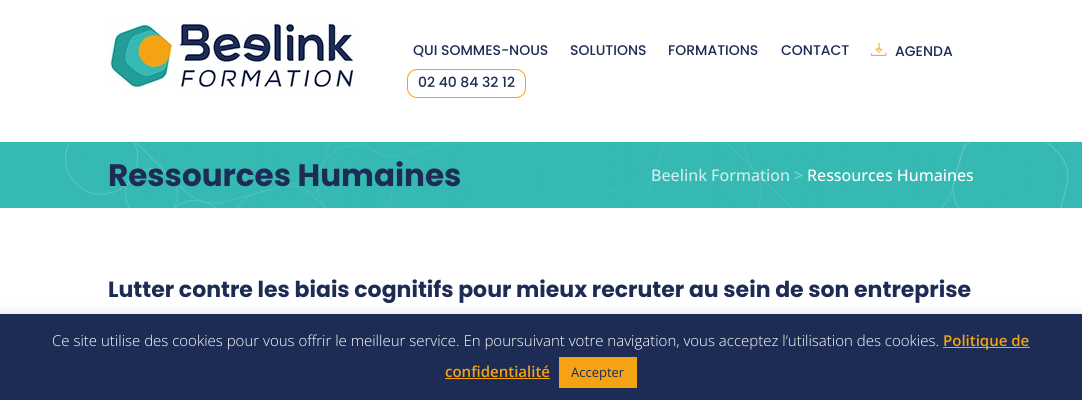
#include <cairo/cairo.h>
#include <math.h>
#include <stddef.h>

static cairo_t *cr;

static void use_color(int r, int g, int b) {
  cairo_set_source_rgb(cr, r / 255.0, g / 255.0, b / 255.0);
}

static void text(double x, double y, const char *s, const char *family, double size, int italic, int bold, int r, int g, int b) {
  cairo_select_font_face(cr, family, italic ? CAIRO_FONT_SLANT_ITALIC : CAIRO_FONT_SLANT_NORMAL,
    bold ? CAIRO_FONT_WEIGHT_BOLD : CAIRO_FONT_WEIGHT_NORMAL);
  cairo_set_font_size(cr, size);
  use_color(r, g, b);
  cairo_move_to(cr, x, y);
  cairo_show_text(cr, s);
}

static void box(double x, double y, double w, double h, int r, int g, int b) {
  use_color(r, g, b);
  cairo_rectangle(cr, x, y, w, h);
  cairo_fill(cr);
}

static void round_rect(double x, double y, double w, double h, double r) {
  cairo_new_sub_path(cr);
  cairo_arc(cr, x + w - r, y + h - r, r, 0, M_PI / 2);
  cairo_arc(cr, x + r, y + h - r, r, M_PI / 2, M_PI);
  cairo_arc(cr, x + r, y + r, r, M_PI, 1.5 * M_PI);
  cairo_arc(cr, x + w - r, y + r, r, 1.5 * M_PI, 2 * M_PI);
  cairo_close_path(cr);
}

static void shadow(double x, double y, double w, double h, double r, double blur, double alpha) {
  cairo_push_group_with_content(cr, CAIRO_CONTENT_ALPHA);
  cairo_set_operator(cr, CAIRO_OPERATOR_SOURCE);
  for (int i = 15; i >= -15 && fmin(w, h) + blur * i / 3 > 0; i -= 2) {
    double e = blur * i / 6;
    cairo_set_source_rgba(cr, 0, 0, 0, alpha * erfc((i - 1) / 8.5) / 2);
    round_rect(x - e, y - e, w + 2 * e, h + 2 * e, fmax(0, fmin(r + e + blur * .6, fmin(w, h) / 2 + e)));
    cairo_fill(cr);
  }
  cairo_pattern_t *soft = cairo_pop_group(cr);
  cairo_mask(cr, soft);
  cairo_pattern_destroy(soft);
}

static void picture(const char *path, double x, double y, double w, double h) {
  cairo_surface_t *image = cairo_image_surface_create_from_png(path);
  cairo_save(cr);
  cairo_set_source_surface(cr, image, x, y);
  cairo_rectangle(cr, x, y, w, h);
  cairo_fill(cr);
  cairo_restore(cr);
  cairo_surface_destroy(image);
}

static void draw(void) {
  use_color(255, 255, 255);
  cairo_paint(cr);
  picture("img_01.png", 108, 20, 247, 71);
  picture("img_02.png", 871, 43, 16, 13);
  round_rect(407.5, 69.5, 118, 28, 9.5);
  use_color(245, 163, 18);
  cairo_set_line_width(cr, 1);
  cairo_stroke(cr);
  box(0, 142, 1082, 66, 54, 185, 179);
  picture("img_03.png", 64, 142, 1005, 66);
  use_color(172, 171, 171);
  shadow(0, 313, 1082, 86, 0, 5, 0.3);
  box(0, 314, 1082, 86, 29, 44, 84);
  box(943, 347, 87, 1, 245, 163, 18);
  box(445, 378, 105, 1, 245, 163, 18);
  box(559, 357, 78, 31, 245, 163, 18);
  text(413, 55, "QUI SOMMES-NOUS", "Poppins Medium", 14, 0, 0, 29, 44, 84);
  text(570, 55, "SOLUTIONS", "Poppins Medium", 14, 0, 0, 29, 44, 84);
  text(668, 55, "FORMATIONS", "Poppins Medium", 14, 0, 0, 29, 44, 84);
  text(781, 55, "CONTACT", "Poppins Medium", 14, 0, 0, 29, 44, 84);
  text(895, 56, "AGENDA", "Poppins Medium", 14, 0, 0, 29, 44, 84);
  text(418, 87, "02 40 84 32 12", "Poppins Medium", 14, 0, 0, 29, 44, 84);
  text(108, 186, "Ressources Humaines", "Poppins", 31, 0, 1, 29, 44, 84);
  text(651, 181, "Beelink Formation", "Open Sans Medium", 16, 0, 0, 205, 238, 236);
  text(794, 181, ">", "Open Sans Medium", 16, 0, 0, 124, 210, 206);
  text(807, 181, "Ressources Humaines", "Open Sans Medium", 16, 0, 0, 255, 255, 255);
  text(108, 297, "Lutter contre les biais cognitifs pour mieux recruter au sein de son entreprise", "Poppins", 22, 0, 1, 29, 44, 84);
  text(52, 346, "Ce site utilise des cookies pour vous offrir le meilleur service. En poursuivant votre navigation, vous acceptez l’utilisation des cookies.", "Open Sans Light", 15, 0, 0, 255, 255, 255);
  text(943, 346, "Politique de", "Open Sans SemiBold", 15, 0, 0, 245, 163, 18);
  text(445, 377, "confidentialité", "Open Sans SemiBold", 15, 0, 0, 245, 163, 18);
  text(571, 377, "Accepter", "Open Sans", 13, 0, 0, 29, 44, 84);
}

int main(void) {
  cairo_surface_t *surface = cairo_image_surface_create(CAIRO_FORMAT_RGB24, 1082, 400);
  cr = cairo_create(surface);
  cairo_font_options_t *options = cairo_font_options_create();
  cairo_font_options_set_hint_metrics(options, CAIRO_HINT_METRICS_OFF);
  cairo_font_options_set_hint_style(options, CAIRO_HINT_STYLE_NONE);
  cairo_set_font_options(cr, options);
  cairo_set_miter_limit(cr, 4);
  draw();
  cairo_surface_write_to_png(surface, "out.png");
  cairo_font_options_destroy(options);
  cairo_destroy(cr);
  cairo_surface_destroy(surface);
  return 0;
}
